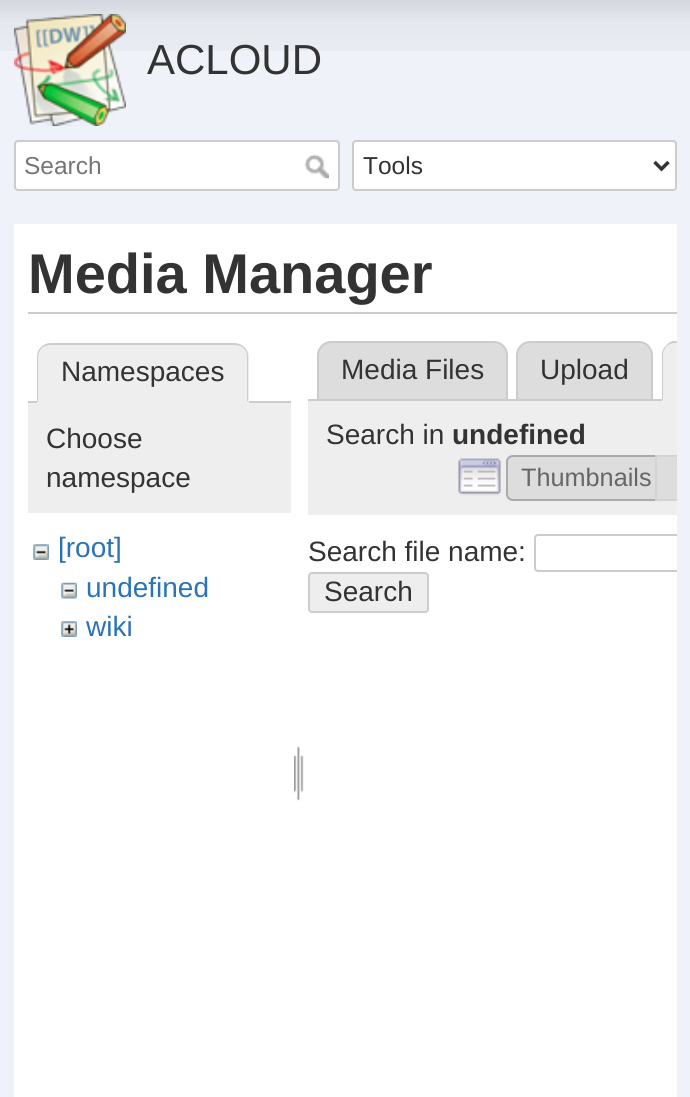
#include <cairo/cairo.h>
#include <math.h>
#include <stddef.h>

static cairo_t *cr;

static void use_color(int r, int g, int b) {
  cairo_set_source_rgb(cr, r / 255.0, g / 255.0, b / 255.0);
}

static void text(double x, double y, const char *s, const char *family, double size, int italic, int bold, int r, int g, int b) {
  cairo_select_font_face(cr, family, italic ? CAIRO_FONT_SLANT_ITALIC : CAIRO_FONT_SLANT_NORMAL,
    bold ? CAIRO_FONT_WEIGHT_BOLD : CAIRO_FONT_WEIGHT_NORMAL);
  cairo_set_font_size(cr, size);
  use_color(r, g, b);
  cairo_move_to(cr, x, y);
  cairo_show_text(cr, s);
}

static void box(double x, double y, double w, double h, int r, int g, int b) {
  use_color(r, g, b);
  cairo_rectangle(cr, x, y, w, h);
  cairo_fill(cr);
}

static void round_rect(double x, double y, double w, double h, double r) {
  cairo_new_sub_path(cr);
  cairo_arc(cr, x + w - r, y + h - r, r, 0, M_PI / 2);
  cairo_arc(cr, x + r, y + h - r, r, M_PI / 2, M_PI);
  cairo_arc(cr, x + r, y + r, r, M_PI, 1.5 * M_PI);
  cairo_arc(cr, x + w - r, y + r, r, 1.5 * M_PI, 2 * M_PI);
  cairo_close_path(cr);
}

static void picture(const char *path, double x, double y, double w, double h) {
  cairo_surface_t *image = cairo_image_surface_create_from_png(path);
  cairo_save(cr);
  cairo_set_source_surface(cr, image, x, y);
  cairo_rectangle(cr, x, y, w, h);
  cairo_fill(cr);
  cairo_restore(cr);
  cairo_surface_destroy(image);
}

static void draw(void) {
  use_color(239, 242, 248);
  cairo_paint(cr);
  picture("img_01.png", 0, 0, 690, 51);
  picture("img_02.png", 14, 14, 112, 112);
  use_color(255, 255, 255);
  round_rect(15, 141, 324, 49, 3);
  cairo_fill_preserve(cr);
  use_color(204, 204, 204);
  cairo_stroke(cr);
  picture("img_03.png", 304, 154, 25, 25);
  use_color(255, 255, 255);
  round_rect(353, 141, 323, 49, 3);
  cairo_fill_preserve(cr);
  use_color(204, 204, 204);
  cairo_stroke(cr);
  cairo_new_path(cr);
  cairo_move_to(cr, 654.5, 162);
  cairo_line_to(cr, 661.5, 169);
  cairo_line_to(cr, 668.5, 162);
  use_color(51, 51, 51);
  cairo_set_line_width(cr, 3.5);
  cairo_stroke(cr);
  box(14, 224, 663, 873, 255, 255, 255);
  box(28, 312, 649, 2, 204, 204, 204);
  box(28, 401, 263, 2, 204, 204, 204);
  use_color(238, 238, 238);
  cairo_new_path(cr);
  cairo_move_to(cr, 51, 343);
  cairo_line_to(cr, 235, 343);
  cairo_curve_to(cr, 242.5, 343, 249, 349.5, 249, 357);
  cairo_line_to(cr, 249, 403);
  cairo_line_to(cr, 37, 403);
  cairo_line_to(cr, 37, 357);
  cairo_curve_to(cr, 37, 349.5, 43.5, 343, 51, 343);
  cairo_close_path(cr);
  cairo_fill(cr);
  use_color(204, 204, 204);
  cairo_new_path(cr);
  cairo_move_to(cr, 51, 343);
  cairo_curve_to(cr, 47, 343, 43, 345, 41, 347);
  cairo_line_to(cr, 42, 348);
  cairo_curve_to(cr, 44, 346, 48, 345, 51, 345);
  cairo_line_to(cr, 234, 345);
  cairo_curve_to(cr, 238, 345, 241, 346, 243, 348);
  cairo_line_to(cr, 244, 347);
  cairo_curve_to(cr, 242, 345, 238, 343, 234, 343);
  cairo_close_path(cr);
  cairo_fill(cr);
  cairo_new_path(cr);
  cairo_move_to(cr, 244, 347);
  cairo_curve_to(cr, 247, 350, 248, 353, 248, 357);
  cairo_line_to(cr, 248, 402);
  cairo_line_to(cr, 247, 401);
  cairo_line_to(cr, 247, 357);
  cairo_curve_to(cr, 247, 354, 246, 350, 243, 348);
  cairo_close_path(cr);
  cairo_fill(cr);
  use_color(238, 238, 238);
  cairo_new_path(cr);
  cairo_move_to(cr, 248, 402);
  cairo_line_to(cr, 247, 401);
  cairo_line_to(cr, 38, 401);
  cairo_line_to(cr, 37, 402);
  cairo_close_path(cr);
  cairo_fill(cr);
  use_color(204, 204, 204);
  cairo_new_path(cr);
  cairo_move_to(cr, 41, 347);
  cairo_curve_to(cr, 38, 350, 37, 353, 37, 357);
  cairo_line_to(cr, 37, 402);
  cairo_line_to(cr, 38, 401);
  cairo_line_to(cr, 38, 357);
  cairo_curve_to(cr, 38, 353, 40, 350, 42, 348);
  cairo_close_path(cr);
  cairo_fill(cr);
  box(28, 403, 263, 110, 238, 238, 238);
  picture("img_04.png", 33, 544, 16, 16);
  picture("img_05.png", 61, 582, 16, 17);
  picture("img_06.png", 61, 621, 16, 16);
  picture("img_07.png", 294, 745, 10, 56);
  use_color(221, 221, 221);
  cairo_new_path(cr);
  cairo_move_to(cr, 331, 342);
  cairo_line_to(cr, 494, 342);
  cairo_curve_to(cr, 501, 342, 507, 348, 507, 355);
  cairo_line_to(cr, 507, 400);
  cairo_line_to(cr, 318, 400);
  cairo_line_to(cr, 318, 355);
  cairo_curve_to(cr, 318, 348, 324, 342, 331, 342);
  cairo_close_path(cr);
  cairo_fill_preserve(cr);
  use_color(204, 204, 204);
  cairo_set_line_width(cr, 2);
  cairo_stroke(cr);
  use_color(221, 221, 221);
  cairo_new_path(cr);
  cairo_move_to(cr, 530, 342);
  cairo_line_to(cr, 639, 342);
  cairo_curve_to(cr, 646, 342, 652, 348, 652, 355);
  cairo_line_to(cr, 652, 400);
  cairo_line_to(cr, 517, 400);
  cairo_line_to(cr, 517, 355);
  cairo_curve_to(cr, 517, 348, 523, 342, 530, 342);
  cairo_close_path(cr);
  cairo_fill_preserve(cr);
  use_color(204, 204, 204);
  cairo_stroke(cr);
  use_color(238, 238, 238);
  cairo_new_path(cr);
  cairo_move_to(cr, 676, 341);
  cairo_line_to(cr, 677, 341);
  cairo_line_to(cr, 677, 401);
  cairo_line_to(cr, 662, 401);
  cairo_line_to(cr, 662, 355);
  cairo_curve_to(cr, 662, 347.5, 668.5, 341, 676, 341);
  cairo_close_path(cr);
  cairo_fill(cr);
  cairo_save(cr);
  cairo_rectangle(cr, 308, 341, 369, 60);
  cairo_clip(cr);
  use_color(204, 204, 204);
  cairo_new_path(cr);
  cairo_move_to(cr, 676, 343);
  cairo_curve_to(cr, 672, 343, 669, 344, 667, 346);
  cairo_line_to(cr, 666, 346);
  cairo_curve_to(cr, 668, 343, 670, 342, 673, 341);
  cairo_line_to(cr, 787, 341);
  cairo_curve_to(cr, 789, 342, 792, 343, 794, 345);
  cairo_line_to(cr, 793, 347);
  cairo_curve_to(cr, 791, 344, 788, 343, 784, 343);
  cairo_close_path(cr);
  cairo_fill(cr);
  cairo_restore(cr);
  use_color(204, 204, 204);
  cairo_new_path(cr);
  cairo_move_to(cr, 662, 400);
  cairo_line_to(cr, 662, 355);
  cairo_curve_to(cr, 662, 352, 663, 348, 666, 346);
  cairo_line_to(cr, 667, 346);
  cairo_curve_to(cr, 664, 349, 663, 352, 663, 355);
  cairo_line_to(cr, 663, 399);
  cairo_close_path(cr);
  cairo_fill(cr);
  box(308, 399, 354, 2, 204, 204, 204);
  box(308, 401, 369, 114, 238, 238, 238);
  picture("img_08.png", 458, 458, 43, 38);
  use_color(221, 221, 221);
  cairo_new_path(cr);
  cairo_move_to(cr, 513, 456);
  cairo_line_to(cr, 664, 456);
  cairo_line_to(cr, 664, 500);
  cairo_line_to(cr, 513, 500);
  cairo_curve_to(cr, 509.5, 500, 507, 497.5, 507, 494);
  cairo_line_to(cr, 507, 462);
  cairo_curve_to(cr, 507, 458.5, 509.5, 456, 513, 456);
  cairo_close_path(cr);
  cairo_fill_preserve(cr);
  use_color(170, 170, 170);
  cairo_stroke(cr);
  box(663, 457, 14, 42, 221, 221, 221);
  cairo_save(cr);
  cairo_rectangle(cr, 308, 401, 369, 114);
  cairo_clip(cr);
  cairo_new_path(cr);
  cairo_move_to(cr, 656, 456);
  cairo_line_to(cr, 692, 456);
  cairo_curve_to(cr, 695.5, 456, 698, 458.5, 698, 462);
  cairo_line_to(cr, 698, 494);
  cairo_curve_to(cr, 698, 497.5, 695.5, 500, 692, 500);
  cairo_line_to(cr, 656, 500);
  cairo_close_path(cr);
  use_color(211, 211, 211);
  cairo_stroke(cr);
  cairo_restore(cr);
  cairo_save(cr);
  cairo_rectangle(cr, 308, 532, 369, 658);
  cairo_clip(cr);
  round_rect(535, 535, 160, 36, 3);
  use_color(204, 204, 204);
  cairo_stroke(cr);
  cairo_restore(cr);
  use_color(238, 238, 238);
  round_rect(309, 573, 119, 39, 3);
  cairo_fill_preserve(cr);
  use_color(204, 204, 204);
  cairo_stroke(cr);
  text(147, 74, "ACLOUD", "Liberation Sans", 42, 0, 0, 51, 51, 51);
  text(24, 174, "Search", "Liberation Sans", 24.5, 0, 0, 117, 117, 117);
  text(363, 174, "Tools", "Liberation Sans", 24.5, 0, 0, 51, 51, 51);
  text(28, 293, "Media Manager", "Liberation Sans", 56, 0, 1, 51, 51, 51);
  text(61, 381, "Namespaces", "Liberation Sans", 28, 0, 0, 51, 51, 51);
  text(46, 448, "Choose", "Liberation Sans", 28, 0, 0, 51, 51, 51);
  text(46, 487, "namespace", "Liberation Sans", 28, 0, 0, 51, 51, 51);
  text(58, 557, "[root]", "Liberation Sans", 28, 0, 0, 43, 115, 183);
  text(86, 597, "undefined", "Liberation Sans", 28, 0, 0, 43, 115, 183);
  text(86, 636, "wiki", "Liberation Sans", 28, 0, 0, 43, 115, 183);
  text(341, 379, "Media Files", "Liberation Sans", 28, 0, 0, 51, 51, 51);
  text(540, 379, "Upload", "Liberation Sans", 28, 0, 0, 51, 51, 51);
  text(326, 444, "Search in", "Liberation Sans", 28, 0, 0, 51, 51, 51);
  text(452, 444, "undefined", "Liberation Sans", 28, 0, 1, 51, 51, 51);
  text(521, 486, "Thumbnails", "Liberation Sans", 25.25, 0, 0, 102, 102, 102);
  text(308, 561, "Search file name:", "Liberation Sans", 28, 0, 0, 51, 51, 51);
  text(324, 601, "Search", "Liberation Sans", 28, 0, 0, 51, 51, 51);
}

int main(void) {
  cairo_surface_t *surface = cairo_image_surface_create(CAIRO_FORMAT_RGB24, 690, 1097);
  cr = cairo_create(surface);
  cairo_font_options_t *options = cairo_font_options_create();
  cairo_font_options_set_hint_metrics(options, CAIRO_HINT_METRICS_OFF);
  cairo_font_options_set_hint_style(options, CAIRO_HINT_STYLE_NONE);
  cairo_set_font_options(cr, options);
  cairo_set_miter_limit(cr, 4);
  draw();
  cairo_surface_write_to_png(surface, "out.png");
  cairo_font_options_destroy(options);
  cairo_destroy(cr);
  cairo_surface_destroy(surface);
  return 0;
}
